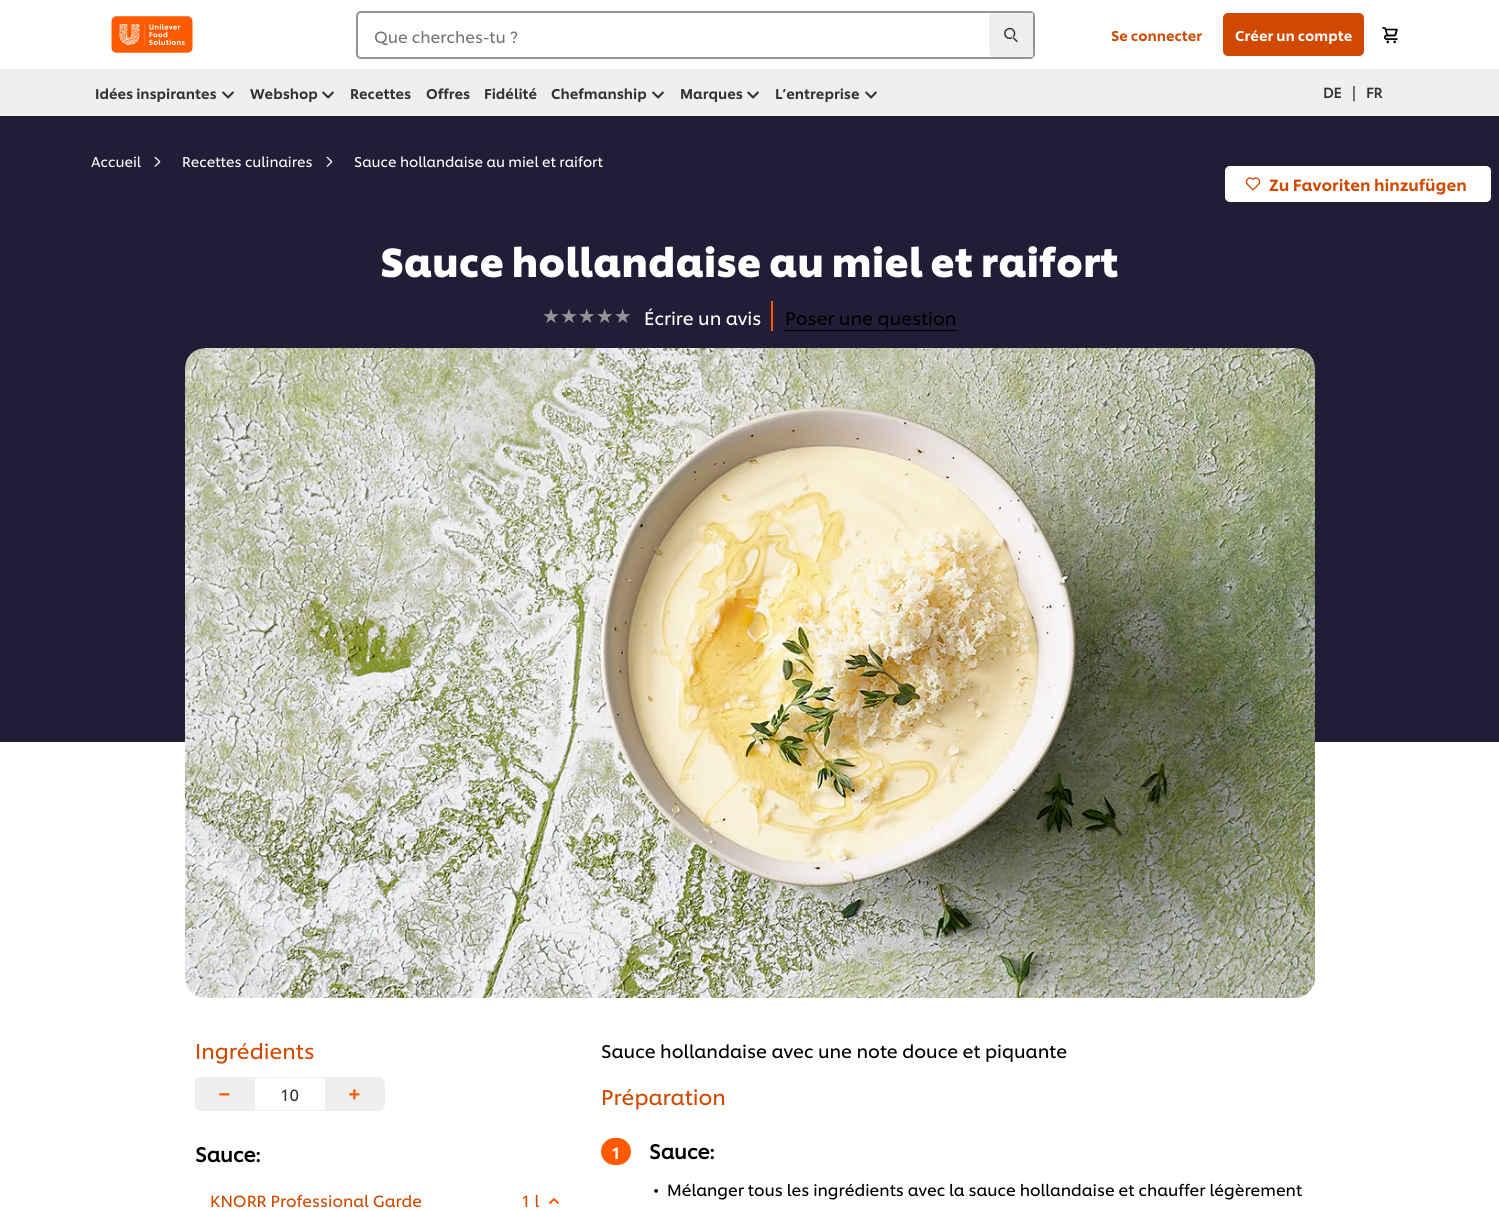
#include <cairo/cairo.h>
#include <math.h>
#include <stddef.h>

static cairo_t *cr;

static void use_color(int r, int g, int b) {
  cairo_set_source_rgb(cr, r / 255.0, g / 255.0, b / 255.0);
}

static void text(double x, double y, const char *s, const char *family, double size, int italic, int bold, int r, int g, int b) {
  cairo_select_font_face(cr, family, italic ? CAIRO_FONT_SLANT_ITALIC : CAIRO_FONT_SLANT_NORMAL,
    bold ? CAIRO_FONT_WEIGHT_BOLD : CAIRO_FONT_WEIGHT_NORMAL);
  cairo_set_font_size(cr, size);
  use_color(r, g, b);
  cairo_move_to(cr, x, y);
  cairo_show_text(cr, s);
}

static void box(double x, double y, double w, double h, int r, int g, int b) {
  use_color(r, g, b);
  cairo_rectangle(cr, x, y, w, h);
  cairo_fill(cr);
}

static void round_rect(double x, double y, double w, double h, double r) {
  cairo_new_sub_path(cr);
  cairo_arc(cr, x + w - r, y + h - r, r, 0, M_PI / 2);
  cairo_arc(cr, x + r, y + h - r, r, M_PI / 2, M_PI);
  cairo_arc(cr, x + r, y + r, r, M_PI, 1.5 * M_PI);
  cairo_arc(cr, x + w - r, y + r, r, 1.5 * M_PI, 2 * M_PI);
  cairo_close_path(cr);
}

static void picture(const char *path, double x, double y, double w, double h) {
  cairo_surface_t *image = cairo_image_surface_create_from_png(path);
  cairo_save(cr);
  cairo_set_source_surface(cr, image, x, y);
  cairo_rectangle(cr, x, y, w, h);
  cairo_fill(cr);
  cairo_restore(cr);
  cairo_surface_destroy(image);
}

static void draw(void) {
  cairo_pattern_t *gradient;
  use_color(255, 255, 255);
  cairo_paint(cr);
  picture("img_01.png", 111, 16, 82, 37);
  round_rect(357, 12, 677, 46, 4);
  use_color(148, 148, 148);
  cairo_stroke(cr);
  use_color(238, 239, 239);
  cairo_new_path(cr);
  cairo_move_to(cr, 994, 13);
  cairo_line_to(cr, 1033, 13);
  cairo_line_to(cr, 1033, 57);
  cairo_line_to(cr, 994, 57);
  cairo_curve_to(cr, 991, 57, 989, 55, 989, 52);
  cairo_line_to(cr, 989, 18);
  cairo_curve_to(cr, 989, 15, 991, 13, 994, 13);
  cairo_close_path(cr);
  cairo_fill(cr);
  picture("img_02.png", 1004, 27, 14, 16);
  use_color(209, 73, 0);
  round_rect(1223, 13, 141, 43, 5);
  cairo_fill(cr);
  picture("img_03.png", 1382, 27, 16, 17);
  box(0, 69, 1499, 47, 238, 239, 239);
  picture("img_04.png", 222, 91, 12, 8);
  picture("img_04.png", 322, 91, 12, 8);
  picture("img_04.png", 652, 91, 12, 8);
  picture("img_04.png", 747, 91, 12, 8);
  picture("img_04.png", 865, 91, 12, 8);
  box(0, 116, 1499, 232, 34, 29, 55);
  picture("img_05.png", 154, 157, 7, 10);
  picture("img_05.png", 326, 157, 7, 10);
  use_color(255, 255, 255);
  round_rect(1225, 166, 266, 36, 5);
  cairo_fill(cr);
  picture("img_06.png", 1245, 177, 16, 14);
  box(771, 301, 2, 30, 255, 90, 0);
  box(783, 330, 174, 1, 0, 0, 0);
  box(0, 348, 1499, 394, 34, 29, 55);
  picture("img_07.png", 185, 348, 1130, 650);
  use_color(238, 239, 239);
  cairo_new_path(cr);
  cairo_move_to(cr, 200, 1077.5);
  cairo_line_to(cr, 254.5, 1077.5);
  cairo_line_to(cr, 254.5, 1110.5);
  cairo_line_to(cr, 200, 1110.5);
  cairo_curve_to(cr, 197.5, 1110.5, 195.5, 1108.5, 195.5, 1106);
  cairo_line_to(cr, 195.5, 1082);
  cairo_curve_to(cr, 195.5, 1079.5, 197.5, 1077.5, 200, 1077.5);
  cairo_close_path(cr);
  cairo_fill_preserve(cr);
  cairo_set_line_width(cr, 1);
  cairo_stroke(cr);
  box(255, 1077, 70, 1, 238, 239, 239);
  box(255, 1110, 70, 1, 238, 239, 239);
  cairo_new_path(cr);
  cairo_move_to(cr, 325.5, 1077.5);
  cairo_line_to(cr, 378, 1077.5);
  cairo_curve_to(cr, 381.5, 1077.5, 384.5, 1080.5, 384.5, 1084);
  cairo_line_to(cr, 384.5, 1104);
  cairo_curve_to(cr, 384.5, 1107.5, 381.5, 1110.5, 378, 1110.5);
  cairo_line_to(cr, 325.5, 1110.5);
  cairo_close_path(cr);
  cairo_fill_preserve(cr);
  cairo_stroke(cr);
  picture("img_08.png", 549, 1198, 10, 6);
  use_color(255, 90, 0);
  round_rect(601, 1138, 30, 27, 13.5);
  cairo_fill(cr);
  text(374, 43, "Que cherches-tu ?", "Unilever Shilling", 16, 0, 0, 117, 117, 117);
  text(1111, 41, "Se connecter", "Unilever Shilling Medium", 14, 0, 0, 209, 73, 0);
  text(1235, 41, "Créer un compte", "Unilever Shilling Medium", 14, 0, 0, 255, 255, 255);
  text(95, 99, "Idées inspirantes", "Unilever Shilling Medium", 14, 0, 0, 51, 51, 51);
  text(250, 99, "Webshop", "Unilever Shilling Medium", 14, 0, 0, 51, 51, 51);
  text(350, 99, "Recettes", "Unilever Shilling Medium", 14, 0, 0, 51, 51, 51);
  text(426, 99, "Offres", "Unilever Shilling Medium", 14, 0, 0, 51, 51, 51);
  text(484, 99, "Fidélité", "Unilever Shilling Medium", 14, 0, 0, 51, 51, 51);
  text(551, 99, "Chefmanship", "Unilever Shilling Medium", 14, 0, 0, 51, 51, 51);
  text(680, 99, "Marques", "Unilever Shilling Medium", 14, 0, 0, 51, 51, 51);
  text(775, 99, "L’entreprise", "Unilever Shilling Medium", 14, 0, 0, 51, 51, 51);
  text(1323, 98, "DE", "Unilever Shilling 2", 14, 0, 1, 51, 51, 51);
  text(1352, 98, "|", "Unilever Shilling", 16, 0, 0, 51, 51, 51);
  text(1366, 98, "FR", "Unilever Shilling 2", 14, 0, 1, 51, 51, 51);
  text(91, 167, "Accueil", "Unilever Shilling", 14, 0, 0, 255, 255, 255);
  text(182, 167, "Recettes culinaires", "Unilever Shilling", 14, 0, 0, 255, 255, 255);
  text(354, 167, "Sauce hollandaise au miel et raifort", "Unilever Shilling", 14, 0, 0, 255, 255, 255);
  text(1269, 191, "Zu Favoriten hinzufügen", "Unilever Shilling Medium", 16, 0, 0, 209, 73, 0);
  text(380, 277, "Sauce hollandaise au miel et raifort", "Unilever Shilling", 40, 0, 1, 255, 255, 255);
  cairo_select_font_face(cr, "DejaVu Sans", CAIRO_FONT_SLANT_NORMAL, CAIRO_FONT_WEIGHT_NORMAL);
  cairo_set_font_size(cr, 20);
  gradient = cairo_pattern_create_linear(542, 314, 632, 314);
  cairo_pattern_add_color_stop_rgba(gradient, 0, 1, 0.353, 0, 1);
  cairo_pattern_add_color_stop_rgba(gradient, 0, 0.58, 0.58, 0.58, 1);
  cairo_set_source(cr, gradient);
  cairo_pattern_destroy(gradient);
  cairo_move_to(cr, 542, 323);
  cairo_show_text(cr, "★★★★★");
  text(644, 325, "Écrire un avis", "Unilever Shilling", 18, 0, 0, 255, 255, 255);
  text(785, 325, "Poser une question", "Unilever Shilling", 18, 0, 0, 0, 0, 0);
  text(195, 1059, "Ingrédients", "Unilever Shilling", 21, 0, 0, 209, 73, 0);
  text(218, 1102, "−", "Unilever Shilling 2", 21, 0, 1, 255, 90, 0);
  text(280, 1101, "10", "Unilever Shilling", 16, 0, 0, 51, 51, 51);
  text(348, 1102, "+", "Unilever Shilling 2", 21, 0, 1, 255, 90, 0);
  text(195, 1162, "Sauce:", "Unilever Shilling 2", 20, 0, 1, 0, 0, 0);
  text(210, 1207, "KNORR Professional Garde", "Unilever Shilling", 16, 0, 0, 209, 73, 0);
  text(521, 1207, "1 l", "Unilever Shilling", 16, 0, 0, 209, 73, 0);
  text(601, 1058, "Sauce hollandaise avec une note douce et piquante", "Unilever Shilling", 18, 0, 0, 0, 0, 0);
  text(601, 1105, "Préparation", "Unilever Shilling", 21, 0, 0, 209, 73, 0);
  text(611, 1159, "1", "Unilever Shilling Medium", 16, 0, 0, 255, 255, 255);
  text(649, 1159, "Sauce:", "Unilever Shilling 2", 20, 0, 1, 0, 0, 0);
  text(653, 1196, "•", "Unilever Shilling", 16, 0, 0, 0, 0, 0);
  text(667, 1196, "Mélanger tous les ingrédients avec la sauce hollandaise et chauffer légèrement", "Unilever Shilling", 16, 0, 0, 0, 0, 0);
}

int main(void) {
  cairo_surface_t *surface = cairo_image_surface_create(CAIRO_FORMAT_RGB24, 1499, 1211);
  cr = cairo_create(surface);
  cairo_font_options_t *options = cairo_font_options_create();
  cairo_font_options_set_hint_metrics(options, CAIRO_HINT_METRICS_OFF);
  cairo_font_options_set_hint_style(options, CAIRO_HINT_STYLE_NONE);
  cairo_set_font_options(cr, options);
  cairo_set_miter_limit(cr, 4);
  draw();
  cairo_surface_write_to_png(surface, "out.png");
  cairo_font_options_destroy(options);
  cairo_destroy(cr);
  cairo_surface_destroy(surface);
  return 0;
}
